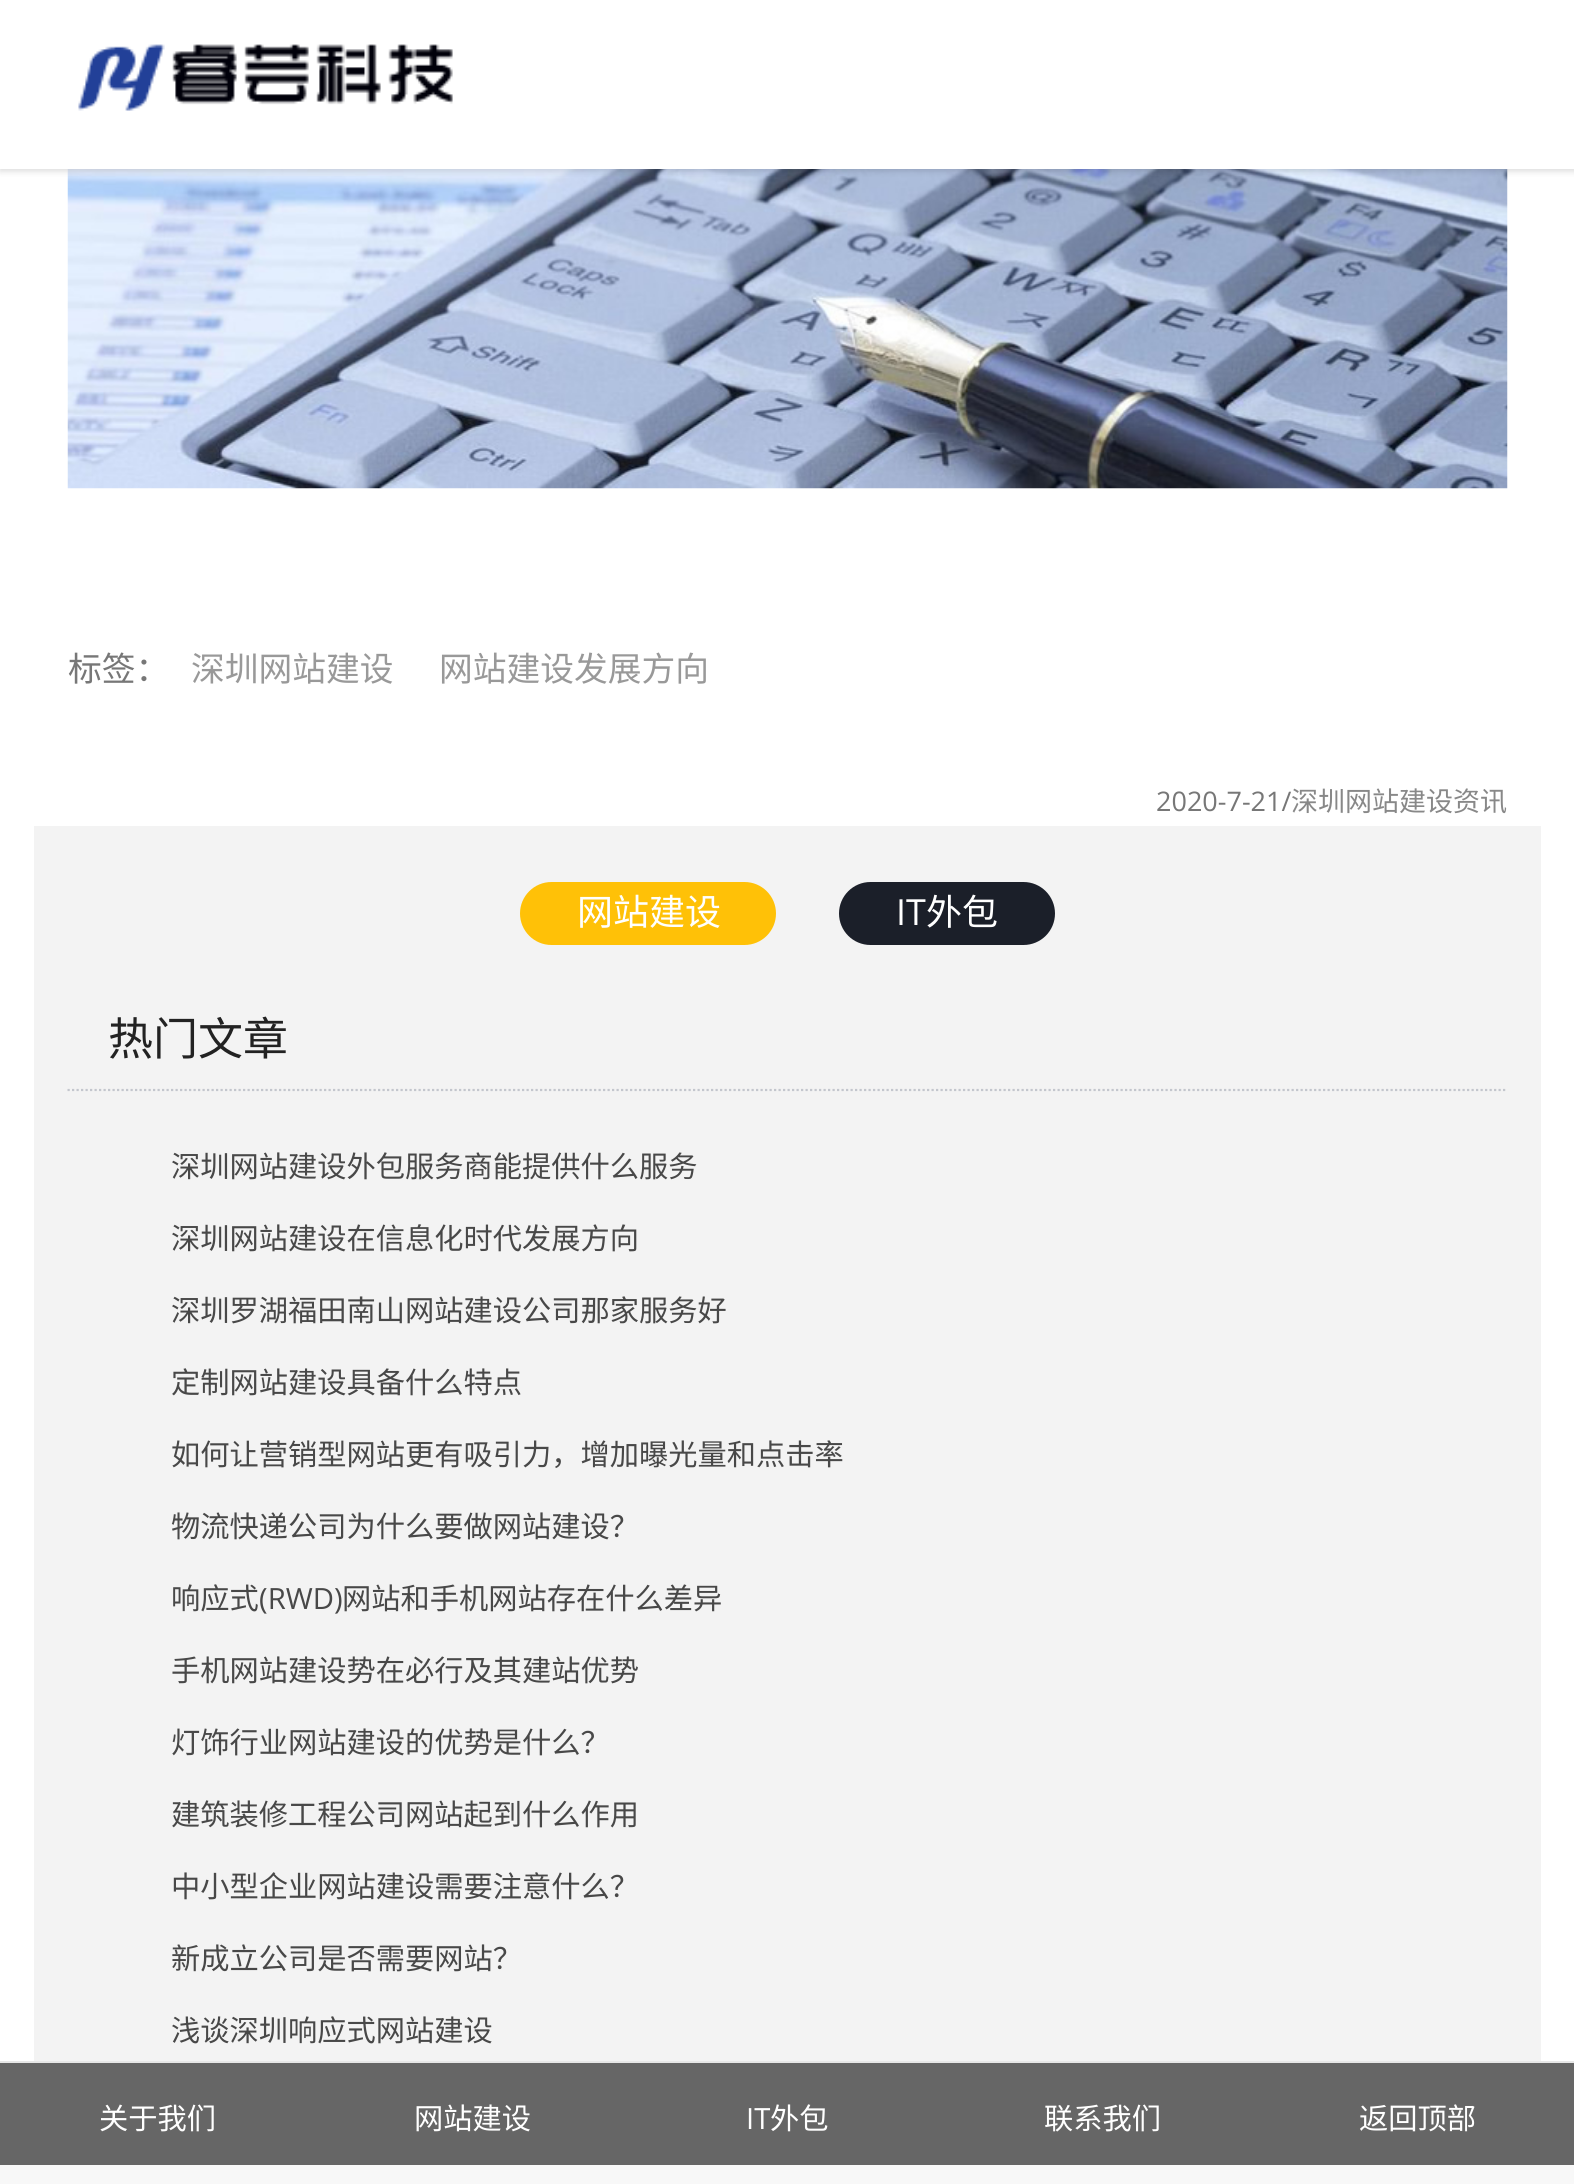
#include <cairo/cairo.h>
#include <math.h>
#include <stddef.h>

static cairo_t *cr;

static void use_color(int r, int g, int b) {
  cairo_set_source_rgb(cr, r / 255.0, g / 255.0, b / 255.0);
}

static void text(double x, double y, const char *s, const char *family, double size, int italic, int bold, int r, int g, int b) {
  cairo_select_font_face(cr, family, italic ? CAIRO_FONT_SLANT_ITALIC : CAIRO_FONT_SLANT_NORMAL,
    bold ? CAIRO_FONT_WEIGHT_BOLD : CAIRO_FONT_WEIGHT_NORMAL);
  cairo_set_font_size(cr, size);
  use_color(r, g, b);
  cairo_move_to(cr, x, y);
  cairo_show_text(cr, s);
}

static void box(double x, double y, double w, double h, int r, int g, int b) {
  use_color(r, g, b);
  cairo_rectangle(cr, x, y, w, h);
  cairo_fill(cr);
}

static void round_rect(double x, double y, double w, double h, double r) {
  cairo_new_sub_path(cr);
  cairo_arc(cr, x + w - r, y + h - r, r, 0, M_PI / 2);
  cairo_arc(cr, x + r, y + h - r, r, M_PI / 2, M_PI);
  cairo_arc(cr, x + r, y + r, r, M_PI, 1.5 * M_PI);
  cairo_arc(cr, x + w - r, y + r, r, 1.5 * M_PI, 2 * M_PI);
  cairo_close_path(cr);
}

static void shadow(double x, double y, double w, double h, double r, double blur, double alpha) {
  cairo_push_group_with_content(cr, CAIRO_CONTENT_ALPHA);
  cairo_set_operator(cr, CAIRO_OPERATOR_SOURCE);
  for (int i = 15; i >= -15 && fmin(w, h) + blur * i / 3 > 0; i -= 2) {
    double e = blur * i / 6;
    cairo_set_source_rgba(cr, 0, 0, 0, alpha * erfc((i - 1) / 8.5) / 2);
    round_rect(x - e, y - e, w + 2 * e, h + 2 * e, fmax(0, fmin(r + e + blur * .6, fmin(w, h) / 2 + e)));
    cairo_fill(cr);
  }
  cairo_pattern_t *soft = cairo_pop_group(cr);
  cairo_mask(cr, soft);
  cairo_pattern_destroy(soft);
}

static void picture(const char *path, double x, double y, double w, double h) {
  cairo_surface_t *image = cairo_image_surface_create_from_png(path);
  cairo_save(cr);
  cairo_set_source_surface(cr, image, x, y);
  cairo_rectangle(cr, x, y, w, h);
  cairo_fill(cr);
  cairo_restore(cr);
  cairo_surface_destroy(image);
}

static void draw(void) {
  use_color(255, 255, 255);
  cairo_paint(cr);
  picture("img_02.png", 67, 169, 1441, 320);
  use_color(0, 0, 0);
  shadow(0, 2, 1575, 169, 0, 3.5, 0.15);
  box(0, 0, 1574, 169, 255, 255, 255);
  picture("img_01.png", 78, 44, 375, 67);
  box(34, 826, 1507, 1235, 243, 243, 243);
  use_color(255, 193, 7);
  round_rect(520, 882, 256, 63, 31.5);
  cairo_fill(cr);
  use_color(27, 31, 41);
  round_rect(839, 882, 216, 63, 31.5);
  cairo_fill(cr);
  cairo_new_path(cr);
  cairo_move_to(cr, 67.5, 1090);
  cairo_line_to(cr, 1507.5, 1090);
  use_color(195, 198, 205);
  cairo_set_line_width(cr, 2.2);
  cairo_set_dash(cr, (double[]){2.25, 2.25}, 2, 0);
  cairo_stroke(cr);
  box(0, 2165, 1574, 19, 248, 248, 248);
  box(0, 2061, 1574, 2, 231, 231, 231);
  box(0, 2063, 1574, 102, 102, 102, 102);
  text(68, 681, "标签：", "Noto Sans CJK SC", 33.75, 0, 0, 119, 119, 119);
  text(191, 681, "深圳网站建设", "Noto Sans CJK SC", 33.75, 0, 0, 153, 153, 153);
  text(439, 681, "网站建设发展方向", "Noto Sans CJK SC", 33.75, 0, 0, 153, 153, 153);
  text(1156, 811, "2020-7-21/", "Open Sans", 27, 0, 0, 119, 119, 119);
  text(1291, 811, "深圳网站建设资讯", "Noto Sans CJK SC", 27, 0, 0, 136, 136, 136);
  text(577, 925, "网站建设", "Noto Sans CJK SC", 36, 0, 0, 255, 255, 255);
  text(896, 925, "IT", "Open Sans", 36, 0, 0, 255, 255, 255);
  text(926, 925, "外包", "Noto Sans CJK SC", 36, 0, 0, 255, 255, 255);
  text(108, 1055, "热门文章", "Noto Sans CJK SC", 45, 0, 0, 34, 34, 34);
  text(171, 1177, "深圳网站建设外包服务商能提供什么服务", "Noto Sans CJK SC", 29.25, 0, 0, 72, 72, 72);
  text(171, 1249, "深圳网站建设在信息化时代发展方向", "Noto Sans CJK SC", 29.25, 0, 0, 72, 72, 72);
  text(171, 1321, "深圳罗湖福田南山网站建设公司那家服务好", "Noto Sans CJK SC", 29.25, 0, 0, 72, 72, 72);
  text(171, 1393, "定制网站建设具备什么特点", "Noto Sans CJK SC", 29.25, 0, 0, 72, 72, 72);
  text(171, 1465, "如何让营销型网站更有吸引力，增加曝光量和点击率", "Noto Sans CJK SC", 29.25, 0, 0, 72, 72, 72);
  text(171, 1537, "物流快递公司为什么要做网站建设？", "Noto Sans CJK SC", 29.25, 0, 0, 72, 72, 72);
  text(171, 1609, "响应式", "Noto Sans CJK SC", 29.25, 0, 0, 72, 72, 72);
  text(259, 1609, "(RWD)", "Open Sans", 29.25, 0, 0, 72, 72, 72);
  text(342, 1609, "网站和手机网站存在什么差异", "Noto Sans CJK SC", 29.25, 0, 0, 72, 72, 72);
  text(171, 1681, "手机网站建设势在必行及其建站优势", "Noto Sans CJK SC", 29.25, 0, 0, 72, 72, 72);
  text(171, 1753, "灯饰行业网站建设的优势是什么？", "Noto Sans CJK SC", 29.25, 0, 0, 72, 72, 72);
  text(171, 1825, "建筑装修工程公司网站起到什么作用", "Noto Sans CJK SC", 29.25, 0, 0, 72, 72, 72);
  text(171, 1897, "中小型企业网站建设需要注意什么？", "Noto Sans CJK SC", 29.25, 0, 0, 72, 72, 72);
  text(171, 1969, "新成立公司是否需要网站？", "Noto Sans CJK SC", 29.25, 0, 0, 72, 72, 72);
  text(171, 2041, "浅谈深圳响应式网站建设", "Noto Sans CJK SC", 29.25, 0, 0, 72, 72, 72);
  text(99, 2129, "关于我们", "Noto Sans CJK SC", 29.25, 0, 0, 255, 255, 255);
  text(414, 2129, "网站建设", "Noto Sans CJK SC", 29.25, 0, 0, 255, 255, 255);
  text(746, 2129, "IT", "Open Sans", 29.25, 0, 0, 255, 255, 255);
  text(770, 2129, "外包", "Noto Sans CJK SC", 29.25, 0, 0, 255, 255, 255);
  text(1044, 2129, "联系我们", "Noto Sans CJK SC", 29.25, 0, 0, 255, 255, 255);
  text(1359, 2129, "返回顶部", "Noto Sans CJK SC", 29.25, 0, 0, 255, 255, 255);
}

int main(void) {
  cairo_surface_t *surface = cairo_image_surface_create(CAIRO_FORMAT_RGB24, 1574, 2184);
  cr = cairo_create(surface);
  cairo_font_options_t *options = cairo_font_options_create();
  cairo_font_options_set_hint_metrics(options, CAIRO_HINT_METRICS_OFF);
  cairo_font_options_set_hint_style(options, CAIRO_HINT_STYLE_NONE);
  cairo_set_font_options(cr, options);
  cairo_set_miter_limit(cr, 4);
  draw();
  cairo_surface_write_to_png(surface, "out.png");
  cairo_font_options_destroy(options);
  cairo_destroy(cr);
  cairo_surface_destroy(surface);
  return 0;
}
